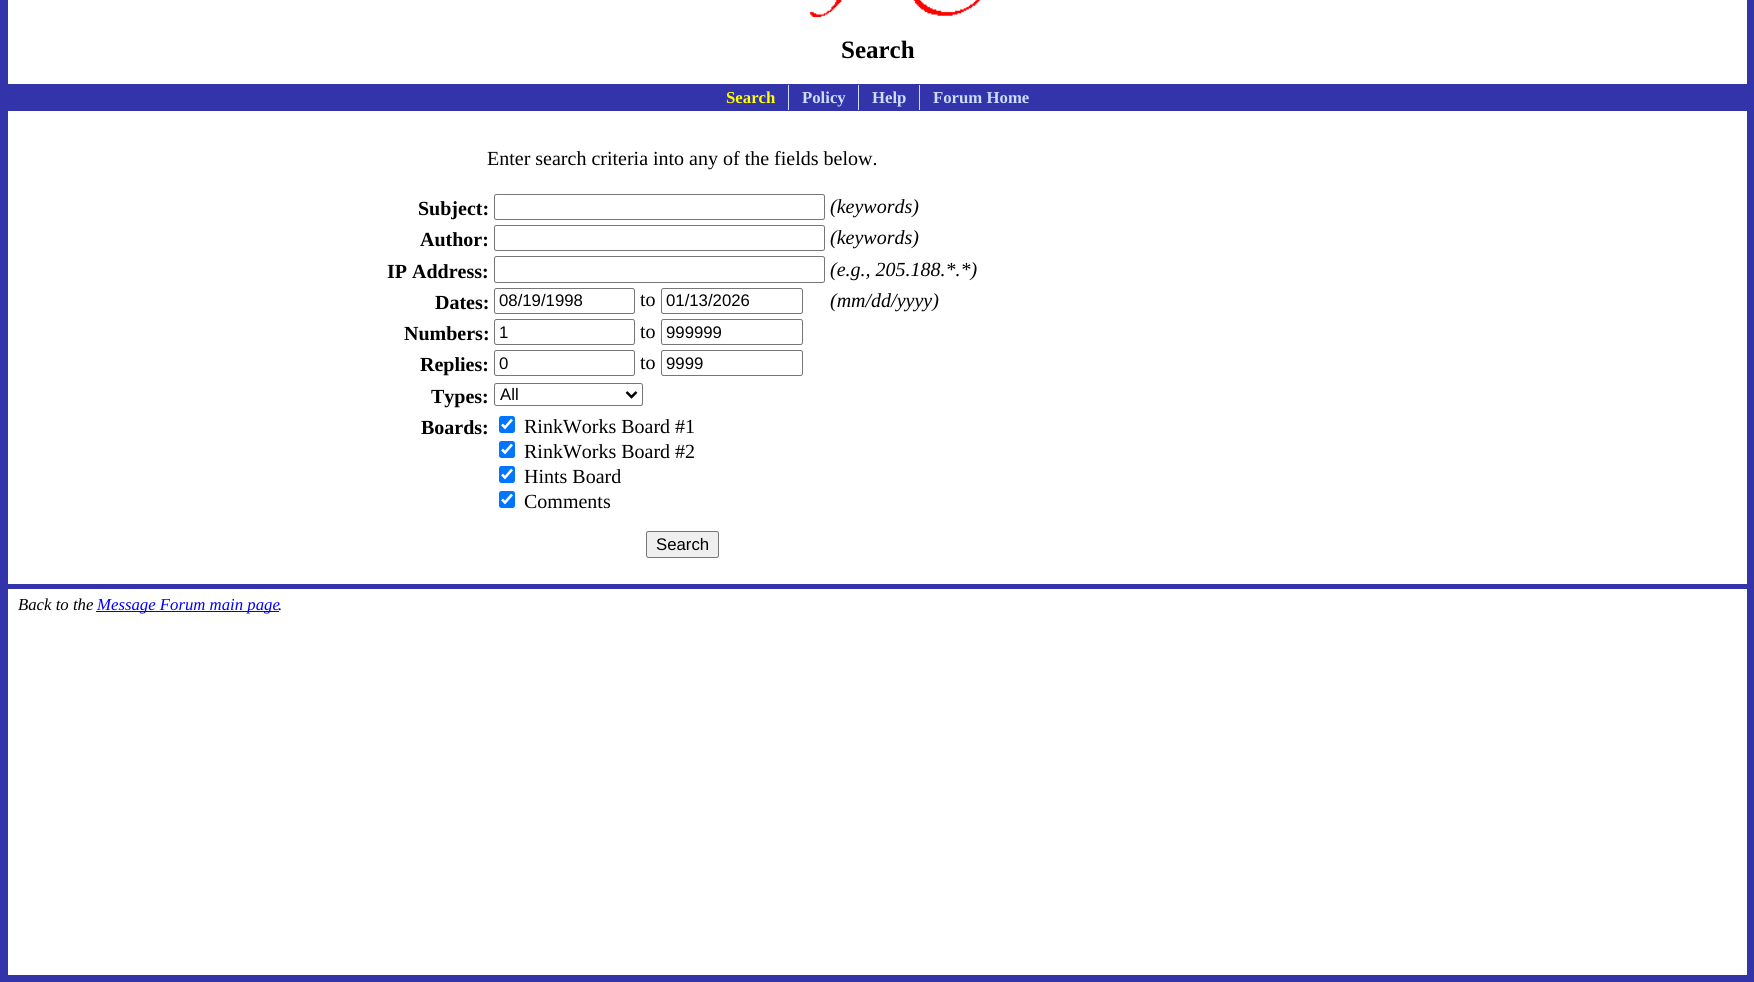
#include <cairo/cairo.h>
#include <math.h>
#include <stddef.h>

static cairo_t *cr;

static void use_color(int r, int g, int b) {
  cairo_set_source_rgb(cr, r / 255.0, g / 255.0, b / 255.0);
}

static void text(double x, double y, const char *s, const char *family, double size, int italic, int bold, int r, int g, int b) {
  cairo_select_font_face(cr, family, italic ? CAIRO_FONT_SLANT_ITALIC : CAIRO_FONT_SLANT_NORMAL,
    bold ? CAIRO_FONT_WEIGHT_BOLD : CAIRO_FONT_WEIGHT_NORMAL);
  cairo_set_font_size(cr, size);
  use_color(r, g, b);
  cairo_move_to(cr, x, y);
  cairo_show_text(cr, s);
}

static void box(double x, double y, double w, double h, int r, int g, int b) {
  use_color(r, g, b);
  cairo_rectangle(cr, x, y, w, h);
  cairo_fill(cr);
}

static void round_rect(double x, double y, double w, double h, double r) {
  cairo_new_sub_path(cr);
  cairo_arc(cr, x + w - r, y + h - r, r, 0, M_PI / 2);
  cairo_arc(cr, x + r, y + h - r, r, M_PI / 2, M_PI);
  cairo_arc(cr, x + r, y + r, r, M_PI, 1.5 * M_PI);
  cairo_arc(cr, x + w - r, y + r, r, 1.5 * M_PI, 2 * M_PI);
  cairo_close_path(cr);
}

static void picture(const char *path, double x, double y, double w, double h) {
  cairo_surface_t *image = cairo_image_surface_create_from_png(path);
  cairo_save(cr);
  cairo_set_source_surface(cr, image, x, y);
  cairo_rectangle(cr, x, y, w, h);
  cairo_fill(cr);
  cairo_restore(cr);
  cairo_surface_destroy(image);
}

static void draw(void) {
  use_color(255, 255, 255);
  cairo_paint(cr);
  cairo_rectangle(cr, 4, -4, 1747, 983);
  use_color(51, 51, 170);
  cairo_set_line_width(cr, 8);
  cairo_stroke(cr);
  picture("img_01.png", 809, 0, 172, 17);
  box(8, 84, 1739, 27, 51, 51, 170);
  box(788, 85, 1, 25, 204, 221, 255);
  box(858, 85, 1, 25, 204, 221, 255);
  box(919, 85, 1, 25, 204, 221, 255);
  round_rect(494.5, 194.5, 330, 25, 2);
  use_color(118, 118, 118);
  cairo_set_line_width(cr, 1);
  cairo_stroke(cr);
  round_rect(494.5, 225.5, 330, 25, 2);
  cairo_stroke(cr);
  round_rect(494.5, 256.5, 330, 26, 2);
  cairo_stroke(cr);
  round_rect(494.5, 288.5, 140, 25, 2);
  cairo_stroke(cr);
  round_rect(661.5, 288.5, 141, 25, 2);
  cairo_stroke(cr);
  round_rect(494.5, 319.5, 140, 25, 2);
  cairo_stroke(cr);
  round_rect(661.5, 319.5, 141, 25, 2);
  cairo_stroke(cr);
  round_rect(494.5, 350.5, 140, 25, 2);
  cairo_stroke(cr);
  round_rect(661.5, 350.5, 141, 25, 2);
  cairo_stroke(cr);
  round_rect(494.5, 383.5, 148, 22, 2);
  cairo_stroke(cr);
  cairo_new_path(cr);
  cairo_move_to(cr, 626.5, 392);
  cairo_line_to(cr, 631.5, 397);
  cairo_line_to(cr, 636.5, 392);
  use_color(0, 0, 0);
  cairo_set_line_width(cr, 2.5);
  cairo_stroke(cr);
  use_color(0, 117, 255);
  round_rect(499, 416, 16, 17, 2.5);
  cairo_fill(cr);
  cairo_new_path(cr);
  cairo_move_to(cr, 502, 424.5);
  cairo_line_to(cr, 505, 427.5);
  cairo_line_to(cr, 512, 419.5);
  use_color(255, 255, 255);
  cairo_set_line_width(cr, 2.6);
  cairo_stroke(cr);
  use_color(0, 117, 255);
  round_rect(499, 441, 16, 17, 2.5);
  cairo_fill(cr);
  cairo_new_path(cr);
  cairo_move_to(cr, 502, 449.5);
  cairo_line_to(cr, 505, 452.5);
  cairo_line_to(cr, 512, 444.5);
  use_color(255, 255, 255);
  cairo_stroke(cr);
  use_color(0, 117, 255);
  round_rect(499, 466, 16, 17, 2.5);
  cairo_fill(cr);
  cairo_new_path(cr);
  cairo_move_to(cr, 502, 474.5);
  cairo_line_to(cr, 505, 477.5);
  cairo_line_to(cr, 512, 469.5);
  use_color(255, 255, 255);
  cairo_stroke(cr);
  use_color(0, 117, 255);
  round_rect(499, 491, 16, 17, 2.5);
  cairo_fill(cr);
  cairo_new_path(cr);
  cairo_move_to(cr, 502, 499.5);
  cairo_line_to(cr, 505, 502.5);
  cairo_line_to(cr, 512, 494.5);
  use_color(255, 255, 255);
  cairo_stroke(cr);
  use_color(239, 239, 239);
  round_rect(646.5, 531.5, 72, 26, 2);
  cairo_fill_preserve(cr);
  use_color(118, 118, 118);
  cairo_set_line_width(cr, 1);
  cairo_stroke(cr);
  box(8, 584, 1740, 5, 51, 51, 170);
  box(96, 611, 183, 1, 0, 0, 255);
  text(841, 58, "Search", "Liberation Serif", 25, 0, 1, 0, 0, 0);
  text(726, 103, "Search", "Liberation Serif", 16.75, 0, 1, 255, 255, 0);
  text(802, 103, "Policy", "Liberation Serif", 16.75, 0, 1, 204, 221, 255);
  text(872, 103, "Help", "Liberation Serif", 16.75, 0, 1, 204, 221, 255);
  text(933, 103, "Forum Home", "Liberation Serif", 16.75, 0, 1, 204, 221, 255);
  text(487, 165, "Enter search criteria into any of the fields below.", "Liberation Serif", 20, 0, 0, 0, 0, 0);
  text(418, 215, "Subject:", "Liberation Serif", 20, 0, 1, 0, 0, 0);
  text(830, 213, "(keywords)", "Liberation Serif", 20, 1, 0, 0, 0, 0);
  text(420, 246, "Author:", "Liberation Serif", 20, 0, 1, 0, 0, 0);
  text(830, 244, "(keywords)", "Liberation Serif", 20, 1, 0, 0, 0, 0);
  text(387, 278, "IP Address:", "Liberation Serif", 20, 0, 1, 0, 0, 0);
  text(830, 276, "(e.g., 205.188.*.*)", "Liberation Serif", 20, 1, 0, 0, 0, 0);
  text(435, 309, "Dates:", "Liberation Serif", 20, 0, 1, 0, 0, 0);
  text(499, 306, "08/19/1998", "Liberation Sans", 16.75, 0, 0, 0, 0, 0);
  text(640, 306, "to", "Liberation Serif", 20, 0, 0, 0, 0, 0);
  text(666, 306, "01/13/2026", "Liberation Sans", 16.75, 0, 0, 0, 0, 0);
  text(830, 307, "(mm/dd/yyyy)", "Liberation Serif", 20, 1, 0, 0, 0, 0);
  text(404, 340, "Numbers:", "Liberation Serif", 20, 0, 1, 0, 0, 0);
  text(499, 338, "1", "Liberation Sans", 16.75, 0, 0, 0, 0, 0);
  text(640, 338, "to", "Liberation Serif", 20, 0, 0, 0, 0, 0);
  text(666, 338, "999999", "Liberation Sans", 16.75, 0, 0, 0, 0, 0);
  text(420, 371, "Replies:", "Liberation Serif", 20, 0, 1, 0, 0, 0);
  text(499, 369, "0", "Liberation Sans", 16.75, 0, 0, 0, 0, 0);
  text(640, 369, "to", "Liberation Serif", 20, 0, 0, 0, 0, 0);
  text(666, 369, "9999", "Liberation Sans", 16.75, 0, 0, 0, 0, 0);
  text(431, 403, "Types:", "Liberation Serif", 20, 0, 1, 0, 0, 0);
  text(500, 400, "All", "Liberation Sans", 16.75, 0, 0, 0, 0, 0);
  text(421, 434, "Boards:", "Liberation Serif", 20, 0, 1, 0, 0, 0);
  text(524, 433, "RinkWorks Board #1", "Liberation Serif", 20, 0, 0, 0, 0, 0);
  text(524, 458, "RinkWorks Board #2", "Liberation Serif", 20, 0, 0, 0, 0, 0);
  text(524, 483, "Hints Board", "Liberation Serif", 20, 0, 0, 0, 0, 0);
  text(524, 508, "Comments", "Liberation Serif", 20, 0, 0, 0, 0, 0);
  text(656, 550, "Search", "Liberation Sans", 16.75, 0, 0, 0, 0, 0);
  text(18, 610, "Back to the", "Liberation Serif", 16.75, 1, 0, 0, 0, 0);
  text(97, 610, "Message Forum main page", "Liberation Serif", 16.75, 1, 0, 0, 0, 255);
  text(278, 610, ".", "Liberation Serif", 16.75, 1, 0, 0, 0, 0);
}

int main(void) {
  cairo_surface_t *surface = cairo_image_surface_create(CAIRO_FORMAT_RGB24, 1754, 982);
  cr = cairo_create(surface);
  cairo_font_options_t *options = cairo_font_options_create();
  cairo_font_options_set_hint_metrics(options, CAIRO_HINT_METRICS_OFF);
  cairo_font_options_set_hint_style(options, CAIRO_HINT_STYLE_NONE);
  cairo_set_font_options(cr, options);
  cairo_set_miter_limit(cr, 4);
  draw();
  cairo_surface_write_to_png(surface, "out.png");
  cairo_font_options_destroy(options);
  cairo_destroy(cr);
  cairo_surface_destroy(surface);
  return 0;
}
